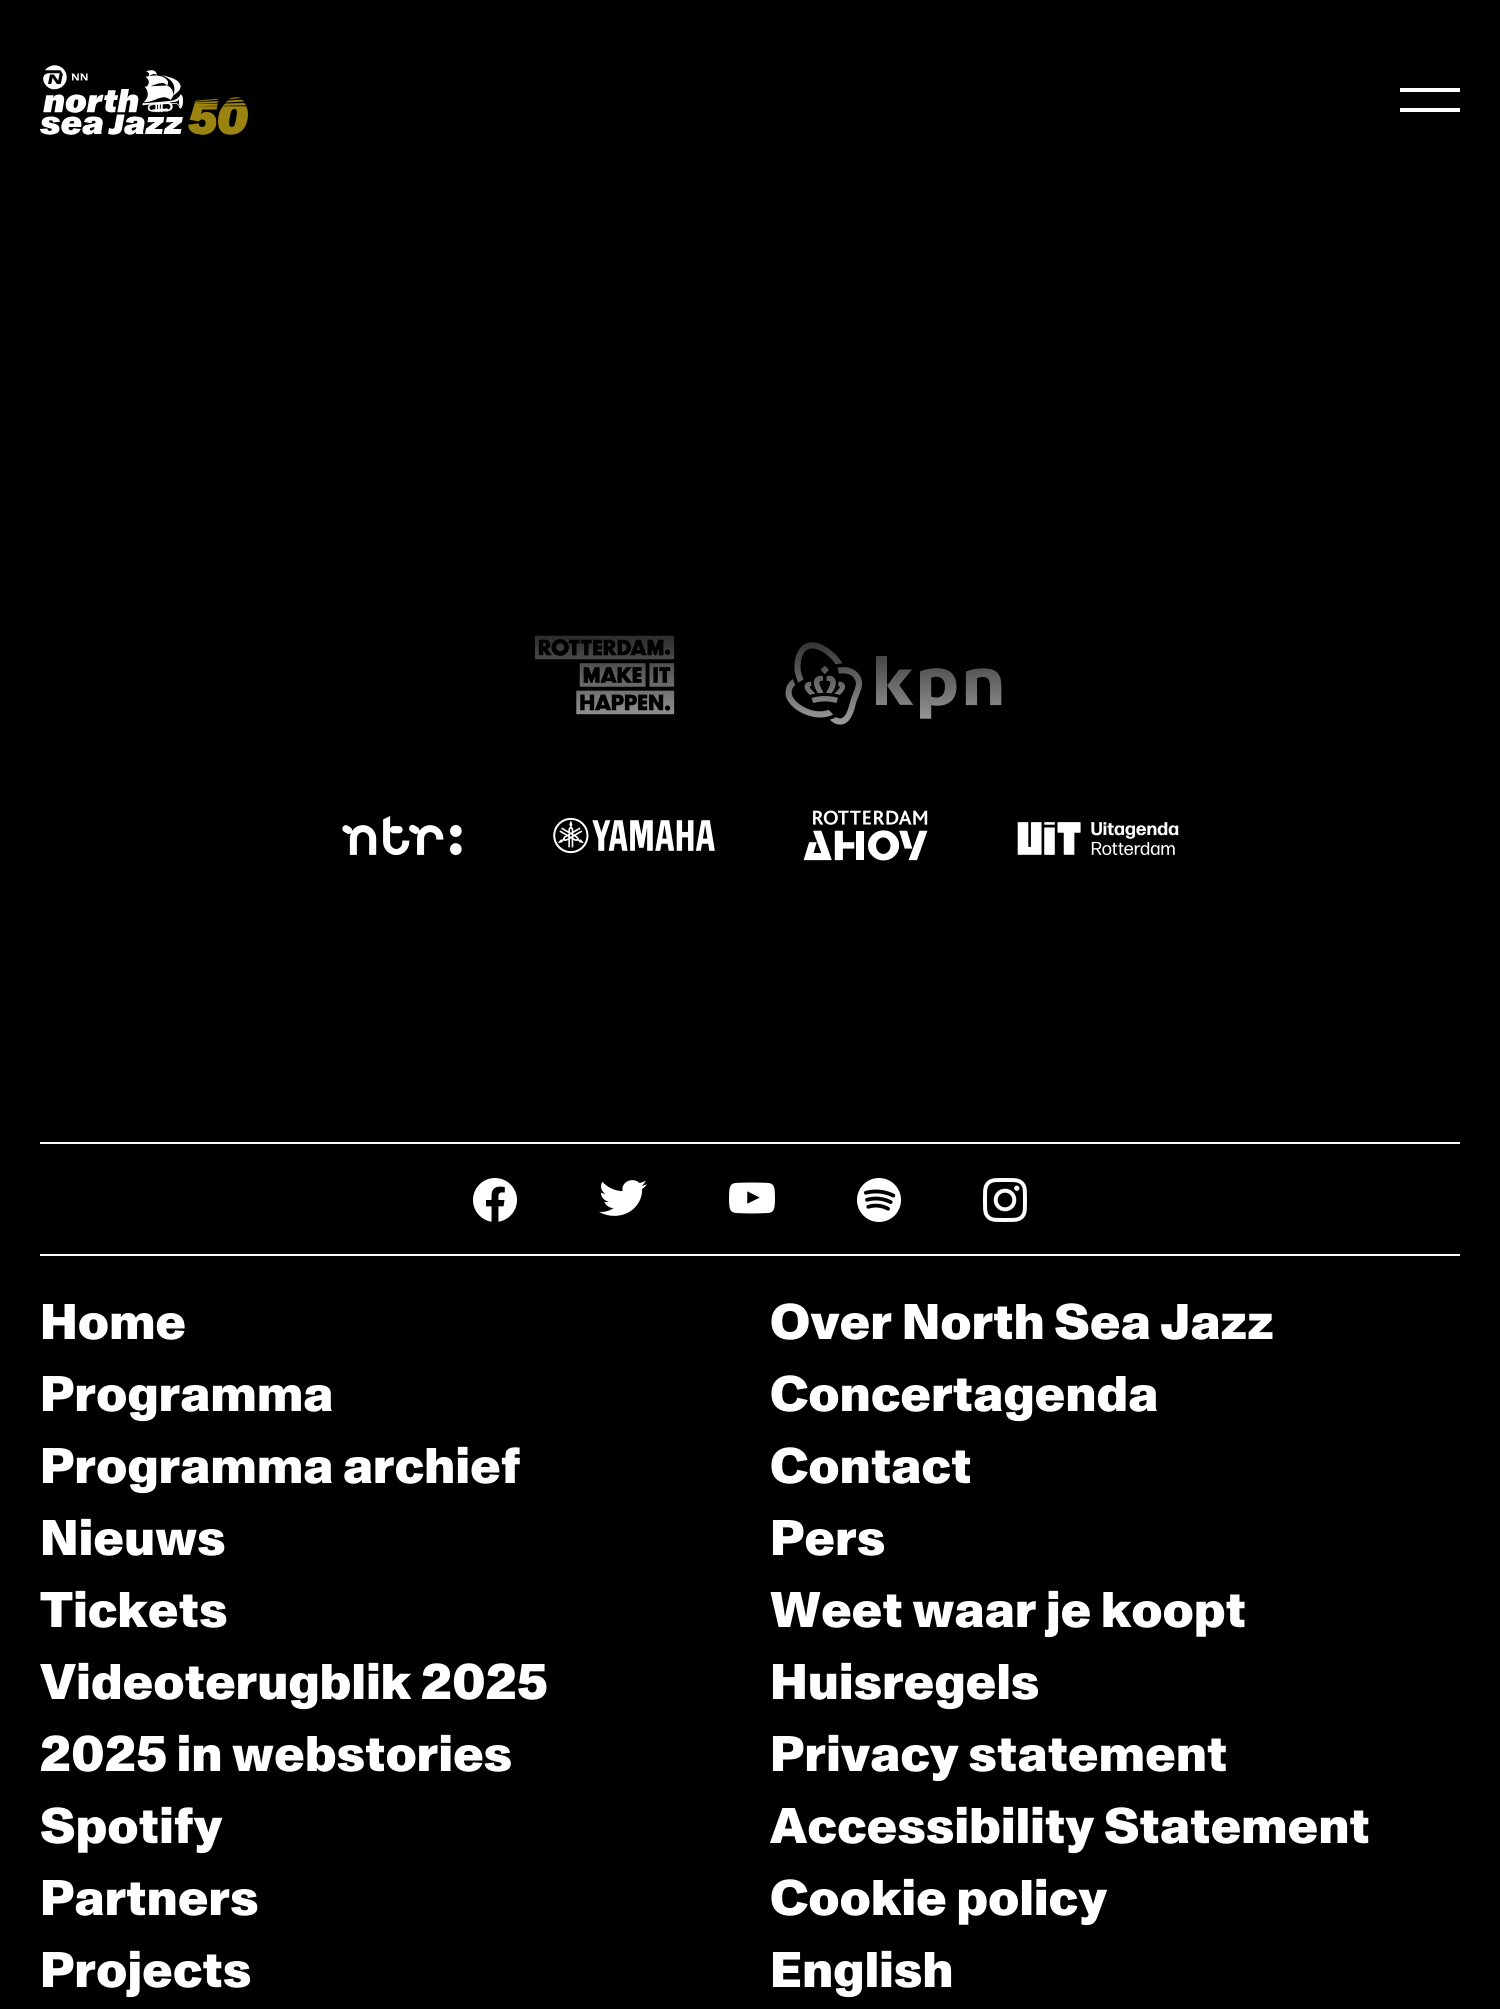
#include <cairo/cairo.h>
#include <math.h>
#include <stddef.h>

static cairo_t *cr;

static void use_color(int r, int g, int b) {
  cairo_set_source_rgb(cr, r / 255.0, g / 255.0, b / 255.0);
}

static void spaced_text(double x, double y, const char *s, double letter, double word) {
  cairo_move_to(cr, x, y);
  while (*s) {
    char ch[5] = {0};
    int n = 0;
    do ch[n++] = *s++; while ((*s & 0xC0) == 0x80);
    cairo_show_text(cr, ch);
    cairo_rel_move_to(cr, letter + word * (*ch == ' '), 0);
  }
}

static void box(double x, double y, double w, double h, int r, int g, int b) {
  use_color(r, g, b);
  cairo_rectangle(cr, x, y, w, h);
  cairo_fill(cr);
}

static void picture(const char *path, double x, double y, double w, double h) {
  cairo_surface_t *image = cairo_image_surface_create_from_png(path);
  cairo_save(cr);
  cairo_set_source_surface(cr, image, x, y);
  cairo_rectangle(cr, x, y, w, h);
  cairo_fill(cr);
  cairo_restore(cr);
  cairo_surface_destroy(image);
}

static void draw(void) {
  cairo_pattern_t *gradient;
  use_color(0, 0, 0);
  cairo_paint(cr);
  picture("img_01.png", 40, 65, 208, 70);
  box(1400, 88, 60, 4, 255, 255, 255);
  box(1400, 108, 60, 4, 255, 255, 255);
  picture("img_02.png", 534, 635, 141, 80);
  picture("img_03.png", 785, 642, 217, 83);
  gradient = cairo_pattern_create_linear(750, 0, 750, 802);
  cairo_pattern_add_color_stop_rgba(gradient, 0.75, 0, 0, 0, 1);
  cairo_pattern_add_color_stop_rgba(gradient, 1, 0, 0, 0, 0);
  cairo_set_source(cr, gradient);
  cairo_pattern_destroy(gradient);
  cairo_rectangle(cr, 534, 635, 468, 90);
  cairo_fill(cr);
  picture("img_04.png", 342, 816, 120, 40);
  picture("img_05.png", 553, 817, 162, 37);
  picture("img_06.png", 803, 810, 125, 51);
  picture("img_07.png", 1017, 822, 162, 34);
  box(40, 1142, 1420, 2, 255, 255, 255);
  picture("img_08.png", 473, 1178, 44, 44);
  picture("img_09.png", 599, 1180, 48, 36);
  picture("img_10.png", 729, 1182, 46, 32);
  picture("img_11.png", 857, 1178, 44, 44);
  picture("img_12.png", 983, 1178, 44, 44);
  box(40, 1254, 1420, 2, 255, 255, 255);
  cairo_select_font_face(cr, "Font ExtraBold", CAIRO_FONT_SLANT_NORMAL, CAIRO_FONT_WEIGHT_NORMAL);
  cairo_set_font_size(cr, 50);
  spaced_text(40, 1339, "Home", 0.3, 0);
  spaced_text(770, 1339, "Over North Sea Jazz", 0.3, 0);
  spaced_text(40, 1411, "Programma", 0.3, 0);
  spaced_text(770, 1411, "Concertagenda", 0.3, 0);
  spaced_text(40, 1483, "Programma archief", 0.3, 0);
  spaced_text(770, 1483, "Contact", 0.3, 0);
  spaced_text(40, 1555, "Nieuws", 0.3, 0);
  spaced_text(770, 1555, "Pers", 0.3, 0);
  spaced_text(40, 1627, "Tickets", 0.3, 0);
  spaced_text(770, 1627, "Weet waar je koopt", 0.3, 0);
  cairo_select_font_face(cr, "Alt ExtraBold", CAIRO_FONT_SLANT_NORMAL, CAIRO_FONT_WEIGHT_NORMAL);
  spaced_text(40, 1699, "Videoterugblik 2025", 0.3, 0);
  cairo_select_font_face(cr, "Font ExtraBold", CAIRO_FONT_SLANT_NORMAL, CAIRO_FONT_WEIGHT_NORMAL);
  spaced_text(770, 1699, "Huisregels", 0.3, 0);
  cairo_select_font_face(cr, "Alt ExtraBold", CAIRO_FONT_SLANT_NORMAL, CAIRO_FONT_WEIGHT_NORMAL);
  spaced_text(40, 1771, "2025 in webstories", 0.3, 0);
  cairo_select_font_face(cr, "Font ExtraBold", CAIRO_FONT_SLANT_NORMAL, CAIRO_FONT_WEIGHT_NORMAL);
  spaced_text(770, 1771, "Privacy statement", 0.3, 0);
  spaced_text(40, 1843, "Spotify", 0.3, 0);
  spaced_text(770, 1843, "Accessibility Statement", 0.3, 0);
  spaced_text(40, 1915, "Partners", 0.3, 0);
  spaced_text(770, 1915, "Cookie policy", 0.3, 0);
  spaced_text(40, 1987, "Projects", 0.3, 0);
  spaced_text(770, 1987, "English", 0.3, 0);
}

int main(void) {
  cairo_surface_t *surface = cairo_image_surface_create(CAIRO_FORMAT_RGB24, 1500, 2009);
  cr = cairo_create(surface);
  cairo_font_options_t *options = cairo_font_options_create();
  cairo_font_options_set_hint_metrics(options, CAIRO_HINT_METRICS_OFF);
  cairo_font_options_set_hint_style(options, CAIRO_HINT_STYLE_NONE);
  cairo_set_font_options(cr, options);
  cairo_set_miter_limit(cr, 4);
  draw();
  cairo_surface_write_to_png(surface, "out.png");
  cairo_font_options_destroy(options);
  cairo_destroy(cr);
  cairo_surface_destroy(surface);
  return 0;
}
